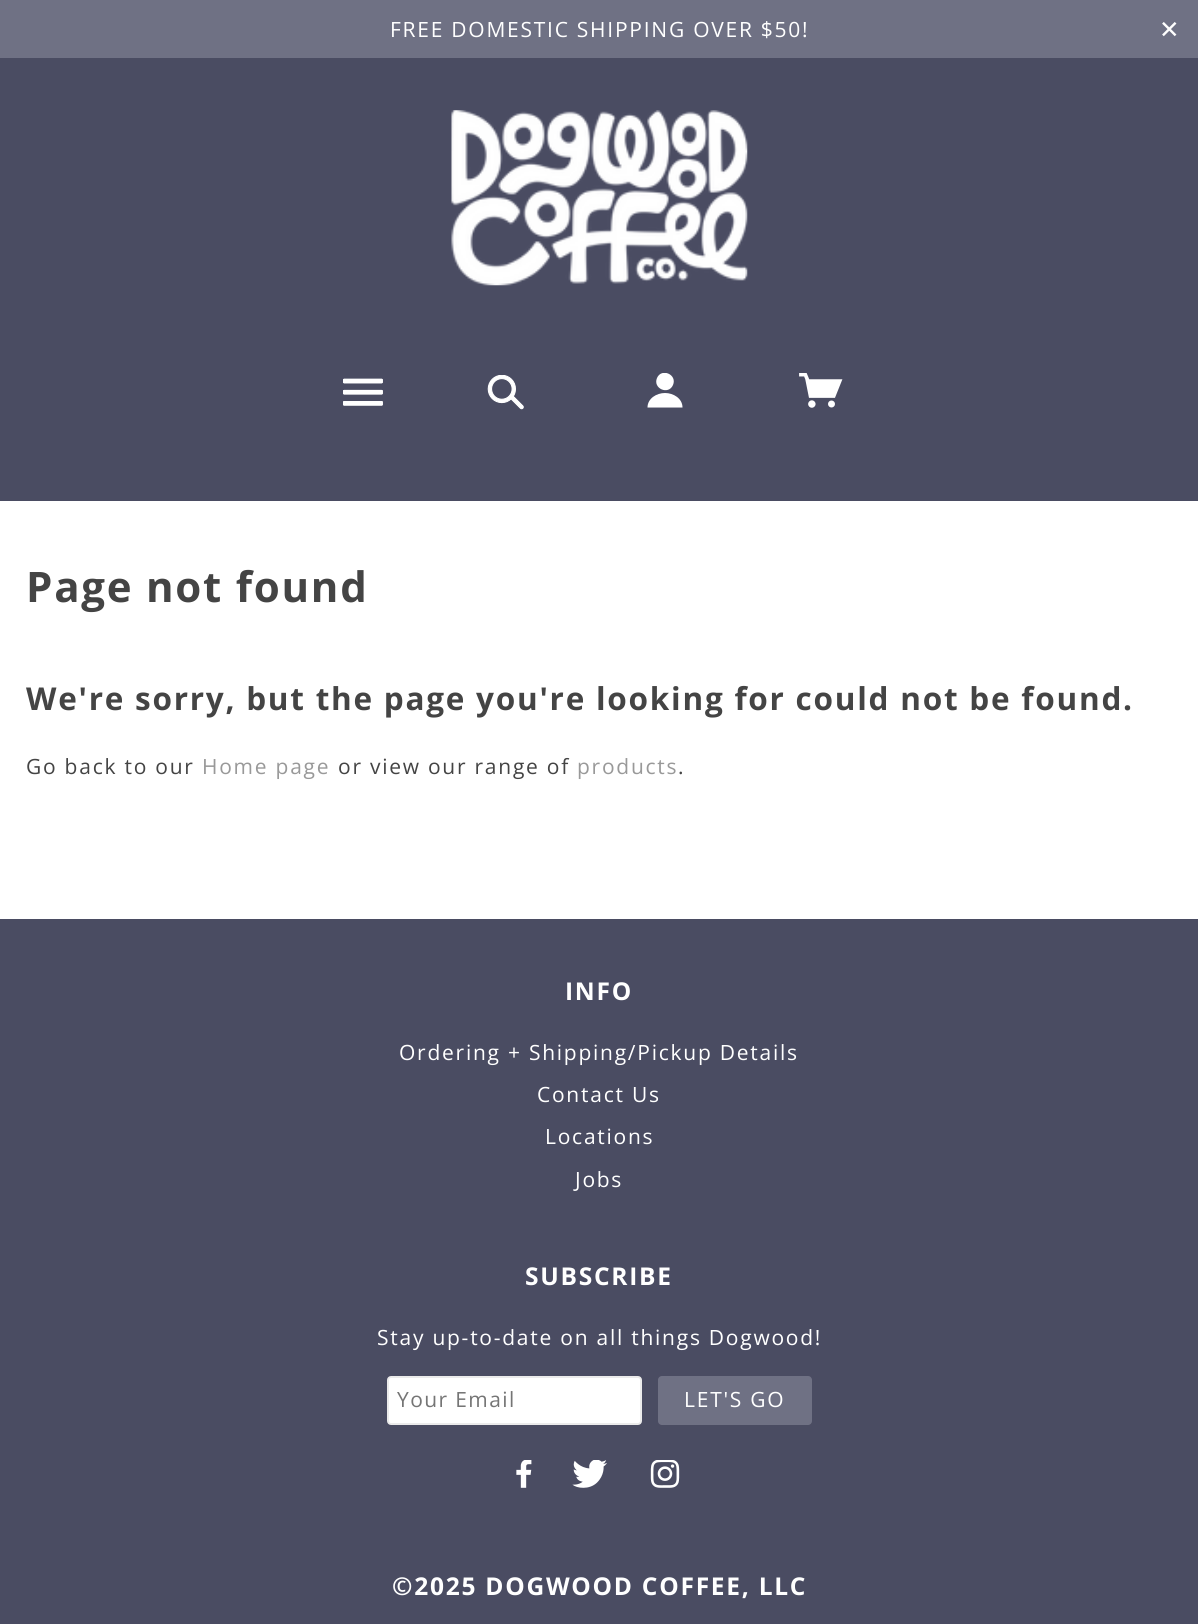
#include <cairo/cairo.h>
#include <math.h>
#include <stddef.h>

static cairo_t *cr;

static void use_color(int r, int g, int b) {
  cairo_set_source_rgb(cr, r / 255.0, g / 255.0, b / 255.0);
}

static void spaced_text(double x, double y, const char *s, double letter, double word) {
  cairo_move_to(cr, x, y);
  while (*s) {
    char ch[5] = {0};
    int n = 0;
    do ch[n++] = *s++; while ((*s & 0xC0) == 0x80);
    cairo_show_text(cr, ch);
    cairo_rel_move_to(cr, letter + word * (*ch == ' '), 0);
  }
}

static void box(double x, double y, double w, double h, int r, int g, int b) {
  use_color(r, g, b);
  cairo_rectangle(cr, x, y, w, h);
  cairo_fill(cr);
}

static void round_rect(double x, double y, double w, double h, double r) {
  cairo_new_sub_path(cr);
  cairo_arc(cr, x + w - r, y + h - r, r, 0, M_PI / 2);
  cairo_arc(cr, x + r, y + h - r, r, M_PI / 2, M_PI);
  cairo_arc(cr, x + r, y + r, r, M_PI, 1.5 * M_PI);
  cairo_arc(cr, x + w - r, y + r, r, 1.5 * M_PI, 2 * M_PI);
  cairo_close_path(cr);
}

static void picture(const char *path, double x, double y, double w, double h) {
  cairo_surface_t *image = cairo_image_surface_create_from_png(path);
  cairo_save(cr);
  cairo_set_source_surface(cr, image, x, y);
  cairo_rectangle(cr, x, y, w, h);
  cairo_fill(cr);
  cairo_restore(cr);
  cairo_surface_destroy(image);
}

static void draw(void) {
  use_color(255, 255, 255);
  cairo_paint(cr);
  box(0, 0, 1198, 58, 111, 113, 132);
  box(0, 58, 1198, 443, 74, 76, 98);
  picture("img_01.png", 451, 110, 297, 176);
  picture("img_02.png", 343, 378, 40, 28);
  picture("img_03.png", 487, 375, 37, 35);
  cairo_save(cr);
  cairo_rectangle(cr, 630, 373, 70, 35);
  cairo_clip(cr);
  use_color(255, 255, 255);
  cairo_new_path(cr);
  cairo_move_to(cr, 665, 393);
  cairo_curve_to(cr, 673.5, 393, 682.5, 398.5, 682.5, 407.5);
  cairo_line_to(cr, 647.5, 407.5);
  cairo_curve_to(cr, 647.5, 398.5, 656.5, 393, 665, 393);
  cairo_close_path(cr);
  cairo_move_to(cr, 673, 385);
  cairo_curve_to(cr, 668.5, 395.5, 652.5, 388.5, 657, 378);
  cairo_curve_to(cr, 661.5, 367.5, 677.5, 374.5, 673, 385);
  cairo_close_path(cr);
  cairo_fill(cr);
  cairo_restore(cr);
  picture("img_04.png", 799, 373, 44, 35);
  box(0, 919, 1198, 705, 74, 76, 98);
  use_color(255, 255, 255);
  round_rect(388, 1377, 253, 47, 3);
  cairo_fill_preserve(cr);
  use_color(235, 235, 235);
  cairo_stroke(cr);
  use_color(111, 113, 132);
  round_rect(658, 1376, 154, 49, 4);
  cairo_fill(cr);
  picture("img_05.png", 516, 1460, 16, 28);
  picture("img_06.png", 572, 1460, 35, 28);
  picture("img_07.png", 650, 1460, 30, 28);
  cairo_select_font_face(cr, "Open Sans", CAIRO_FONT_SLANT_NORMAL, CAIRO_FONT_WEIGHT_NORMAL);
  cairo_set_font_size(cr, 21);
  use_color(255, 255, 255);
  spaced_text(390, 37, "FREE DOMESTIC SHIPPING OVER $50!", 1.75, 0);
  cairo_select_font_face(cr, "DejaVu Sans", CAIRO_FONT_SLANT_NORMAL, CAIRO_FONT_WEIGHT_NORMAL);
  cairo_set_font_size(cr, 24.5);
  spaced_text(1159, 38, "✕", 1.75, 0);
  cairo_select_font_face(cr, "Open Sans", CAIRO_FONT_SLANT_NORMAL, CAIRO_FONT_WEIGHT_BOLD);
  cairo_set_font_size(cr, 42);
  use_color(68, 68, 68);
  spaced_text(26, 602, "Page not found", 1.75, 0);
  cairo_set_font_size(cr, 31.5);
  spaced_text(26, 710, "We're sorry, but the page you're looking for could not be found.", 1.75, 0);
  cairo_select_font_face(cr, "Open Sans", CAIRO_FONT_SLANT_NORMAL, CAIRO_FONT_WEIGHT_NORMAL);
  cairo_set_font_size(cr, 21);
  spaced_text(26, 774, "Go back to our", 1.75, 0);
  use_color(153, 153, 153);
  spaced_text(202, 774, "Home page", 1.75, 0);
  use_color(68, 68, 68);
  spaced_text(338, 774, "or view our range of", 1.75, 0);
  use_color(153, 153, 153);
  spaced_text(577, 774, "products", 1.75, 0);
  use_color(68, 68, 68);
  spaced_text(678, 774, ".", 1.75, 0);
  cairo_select_font_face(cr, "Open Sans", CAIRO_FONT_SLANT_NORMAL, CAIRO_FONT_WEIGHT_BOLD);
  cairo_set_font_size(cr, 24.5);
  use_color(255, 255, 255);
  spaced_text(565, 1000, "INFO", 1.75, 0);
  cairo_select_font_face(cr, "Open Sans", CAIRO_FONT_SLANT_NORMAL, CAIRO_FONT_WEIGHT_NORMAL);
  cairo_set_font_size(cr, 21);
  spaced_text(399, 1060, "Ordering + Shipping/Pickup Details", 1.75, 0);
  spaced_text(537, 1102, "Contact Us", 1.75, 0);
  spaced_text(545, 1144, "Locations", 1.75, 0);
  spaced_text(575, 1187, "Jobs", 1.75, 0);
  cairo_select_font_face(cr, "Open Sans", CAIRO_FONT_SLANT_NORMAL, CAIRO_FONT_WEIGHT_BOLD);
  cairo_set_font_size(cr, 24.5);
  spaced_text(525, 1285, "SUBSCRIBE", 1.75, 0);
  cairo_select_font_face(cr, "Open Sans", CAIRO_FONT_SLANT_NORMAL, CAIRO_FONT_WEIGHT_NORMAL);
  cairo_set_font_size(cr, 21);
  spaced_text(377, 1345, "Stay up-to-date on all things Dogwood!", 1.75, 0);
  use_color(117, 117, 117);
  spaced_text(397, 1407, "Your Email", 1.4, 0);
  use_color(255, 255, 255);
  spaced_text(684, 1407, "LET'S GO", 1.75, 0);
  cairo_select_font_face(cr, "Open Sans", CAIRO_FONT_SLANT_NORMAL, CAIRO_FONT_WEIGHT_BOLD);
  cairo_set_font_size(cr, 24.5);
  spaced_text(392, 1595, "©2025 DOGWOOD COFFEE, LLC", 1.75, 0);
}

int main(void) {
  cairo_surface_t *surface = cairo_image_surface_create(CAIRO_FORMAT_RGB24, 1198, 1624);
  cr = cairo_create(surface);
  cairo_font_options_t *options = cairo_font_options_create();
  cairo_font_options_set_hint_metrics(options, CAIRO_HINT_METRICS_OFF);
  cairo_font_options_set_hint_style(options, CAIRO_HINT_STYLE_NONE);
  cairo_set_font_options(cr, options);
  cairo_set_miter_limit(cr, 4);
  draw();
  cairo_surface_write_to_png(surface, "out.png");
  cairo_font_options_destroy(options);
  cairo_destroy(cr);
  cairo_surface_destroy(surface);
  return 0;
}
